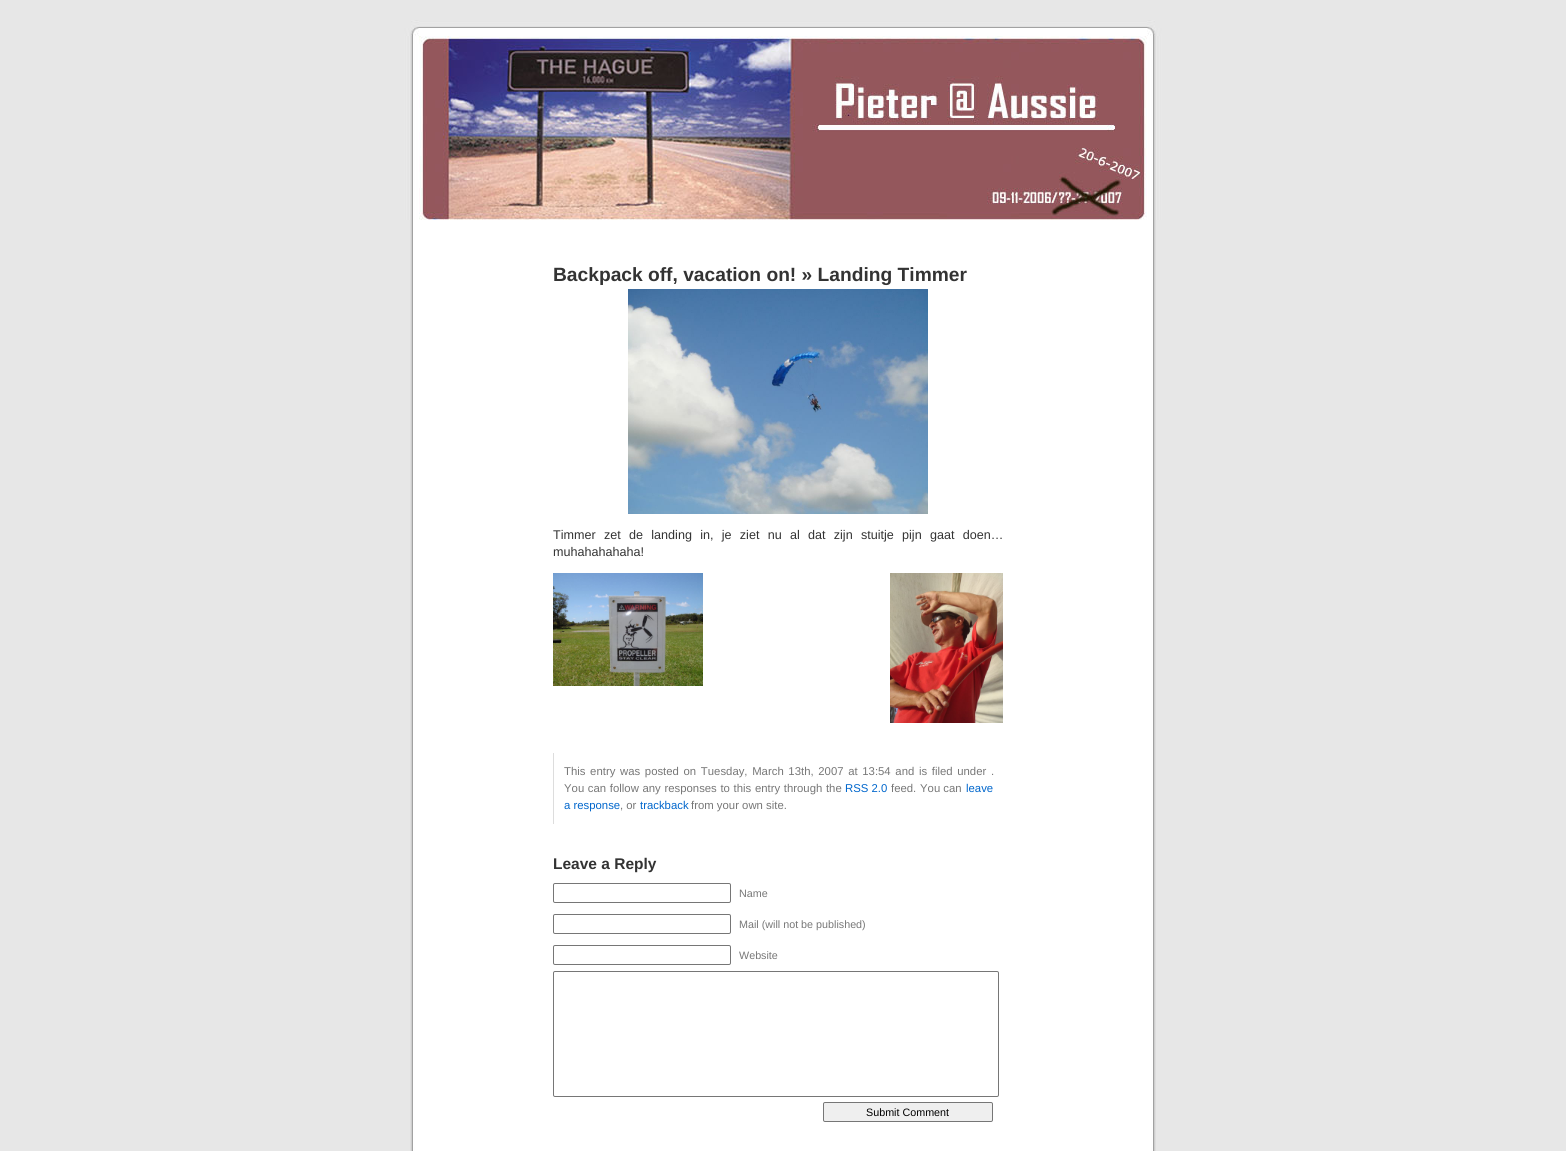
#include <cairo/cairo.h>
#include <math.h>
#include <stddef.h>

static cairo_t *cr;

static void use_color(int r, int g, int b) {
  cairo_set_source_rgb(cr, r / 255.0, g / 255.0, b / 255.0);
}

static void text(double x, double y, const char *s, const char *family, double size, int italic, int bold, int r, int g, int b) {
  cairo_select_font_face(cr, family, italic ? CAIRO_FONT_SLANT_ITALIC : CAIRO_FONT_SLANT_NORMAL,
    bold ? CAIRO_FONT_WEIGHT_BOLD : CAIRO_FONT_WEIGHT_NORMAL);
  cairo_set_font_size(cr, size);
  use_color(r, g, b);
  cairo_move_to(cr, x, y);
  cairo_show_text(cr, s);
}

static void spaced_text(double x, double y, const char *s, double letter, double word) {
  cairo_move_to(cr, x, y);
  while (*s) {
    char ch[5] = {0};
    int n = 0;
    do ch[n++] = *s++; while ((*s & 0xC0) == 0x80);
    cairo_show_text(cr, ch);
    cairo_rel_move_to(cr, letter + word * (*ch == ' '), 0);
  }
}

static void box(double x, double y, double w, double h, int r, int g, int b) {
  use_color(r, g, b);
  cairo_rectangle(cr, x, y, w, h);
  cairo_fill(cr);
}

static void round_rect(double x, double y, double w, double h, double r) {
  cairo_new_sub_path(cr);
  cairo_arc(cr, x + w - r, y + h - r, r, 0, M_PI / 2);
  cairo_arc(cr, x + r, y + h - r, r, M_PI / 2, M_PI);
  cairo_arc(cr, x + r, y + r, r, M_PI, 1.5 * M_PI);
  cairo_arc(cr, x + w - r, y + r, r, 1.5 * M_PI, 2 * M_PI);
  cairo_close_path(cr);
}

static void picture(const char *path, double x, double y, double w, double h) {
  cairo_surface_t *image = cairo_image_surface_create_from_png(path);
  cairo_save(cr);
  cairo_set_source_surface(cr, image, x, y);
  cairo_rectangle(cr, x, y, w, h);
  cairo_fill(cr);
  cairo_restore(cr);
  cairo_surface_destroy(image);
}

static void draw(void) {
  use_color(231, 231, 231);
  cairo_paint(cr);
  picture("img_01.png", 410, 220, 746, 927);
  picture("img_02.png", 404, 20, 758, 200);
  picture("img_03.png", 628, 289, 300, 225);
  picture("img_04.png", 553, 573, 150, 113);
  picture("img_05.png", 890, 573, 113, 150);
  box(553, 753, 1, 71, 221, 221, 221);
  round_rect(553.5, 883.5, 177, 19, 1.5);
  use_color(118, 118, 118);
  cairo_set_line_width(cr, 1);
  cairo_stroke(cr);
  round_rect(553.5, 914.5, 177, 19, 1.5);
  cairo_stroke(cr);
  round_rect(553.5, 945.5, 177, 19, 1.5);
  cairo_stroke(cr);
  round_rect(553.5, 971.5, 445, 125, 1.5);
  cairo_stroke(cr);
  use_color(239, 239, 239);
  round_rect(823.5, 1102.5, 169, 19, 1.5);
  cairo_fill_preserve(cr);
  use_color(118, 118, 118);
  cairo_stroke(cr);
  picture("img_06.png", 410, 1147, 746, 4);
  text(553, 281, "Backpack off, vacation on! » Landing Timmer", "Liberation Sans", 19.2, 0, 1, 51, 51, 51);
  cairo_select_font_face(cr, "Liberation Sans", CAIRO_FONT_SLANT_NORMAL, CAIRO_FONT_WEIGHT_NORMAL);
  cairo_set_font_size(cr, 12.6);
  spaced_text(553, 539, "Timmer zet de landing in, je ziet nu al dat zijn stuitje pijn gaat doen…", 0, 4.75);
  text(553, 556, "muhahahahaha!", "Liberation Sans", 12.6, 0, 0, 51, 51, 51);
  cairo_set_font_size(cr, 11.35);
  use_color(119, 119, 119);
  spaced_text(564, 775, "This entry was posted on Tuesday, March 13th, 2007 at 13:54 and is filed under .", 0, 1.5);
  spaced_text(564, 792, "You can follow any responses to this entry through the", 0, 0.5);
  text(845, 792, "RSS 2.0", "Liberation Sans", 11.35, 0, 0, 0, 102, 204);
  text(891, 792, "feed.", "Liberation Sans", 11.35, 0, 0, 119, 119, 119);
  text(920, 792, "You can", "Liberation Sans", 11.35, 0, 0, 119, 119, 119);
  text(966, 792, "leave", "Liberation Sans", 11.35, 0, 0, 0, 102, 204);
  text(564, 809, "a response", "Liberation Sans", 11.35, 0, 0, 0, 102, 204);
  text(620, 809, ", or", "Liberation Sans", 11.35, 0, 0, 119, 119, 119);
  text(640, 809, "trackback", "Liberation Sans", 11.35, 0, 0, 0, 102, 204);
  text(691, 809, "from your own site.", "Liberation Sans", 11.35, 0, 0, 119, 119, 119);
  text(553, 869, "Leave a Reply", "Liberation Sans", 15.5, 0, 1, 51, 51, 51);
  text(739, 897, "Name", "Liberation Sans", 10.75, 0, 0, 119, 119, 119);
  text(739, 928, "Mail (will not be published)", "Liberation Sans", 10.75, 0, 0, 119, 119, 119);
  text(739, 959, "Website", "Liberation Sans", 10.75, 0, 0, 119, 119, 119);
  text(866, 1116, "Submit Comment", "Liberation Sans", 10.75, 0, 0, 0, 0, 0);
}

int main(void) {
  cairo_surface_t *surface = cairo_image_surface_create(CAIRO_FORMAT_RGB24, 1566, 1151);
  cr = cairo_create(surface);
  cairo_font_options_t *options = cairo_font_options_create();
  cairo_font_options_set_hint_metrics(options, CAIRO_HINT_METRICS_OFF);
  cairo_font_options_set_hint_style(options, CAIRO_HINT_STYLE_NONE);
  cairo_set_font_options(cr, options);
  cairo_set_miter_limit(cr, 4);
  draw();
  cairo_surface_write_to_png(surface, "out.png");
  cairo_font_options_destroy(options);
  cairo_destroy(cr);
  cairo_surface_destroy(surface);
  return 0;
}
